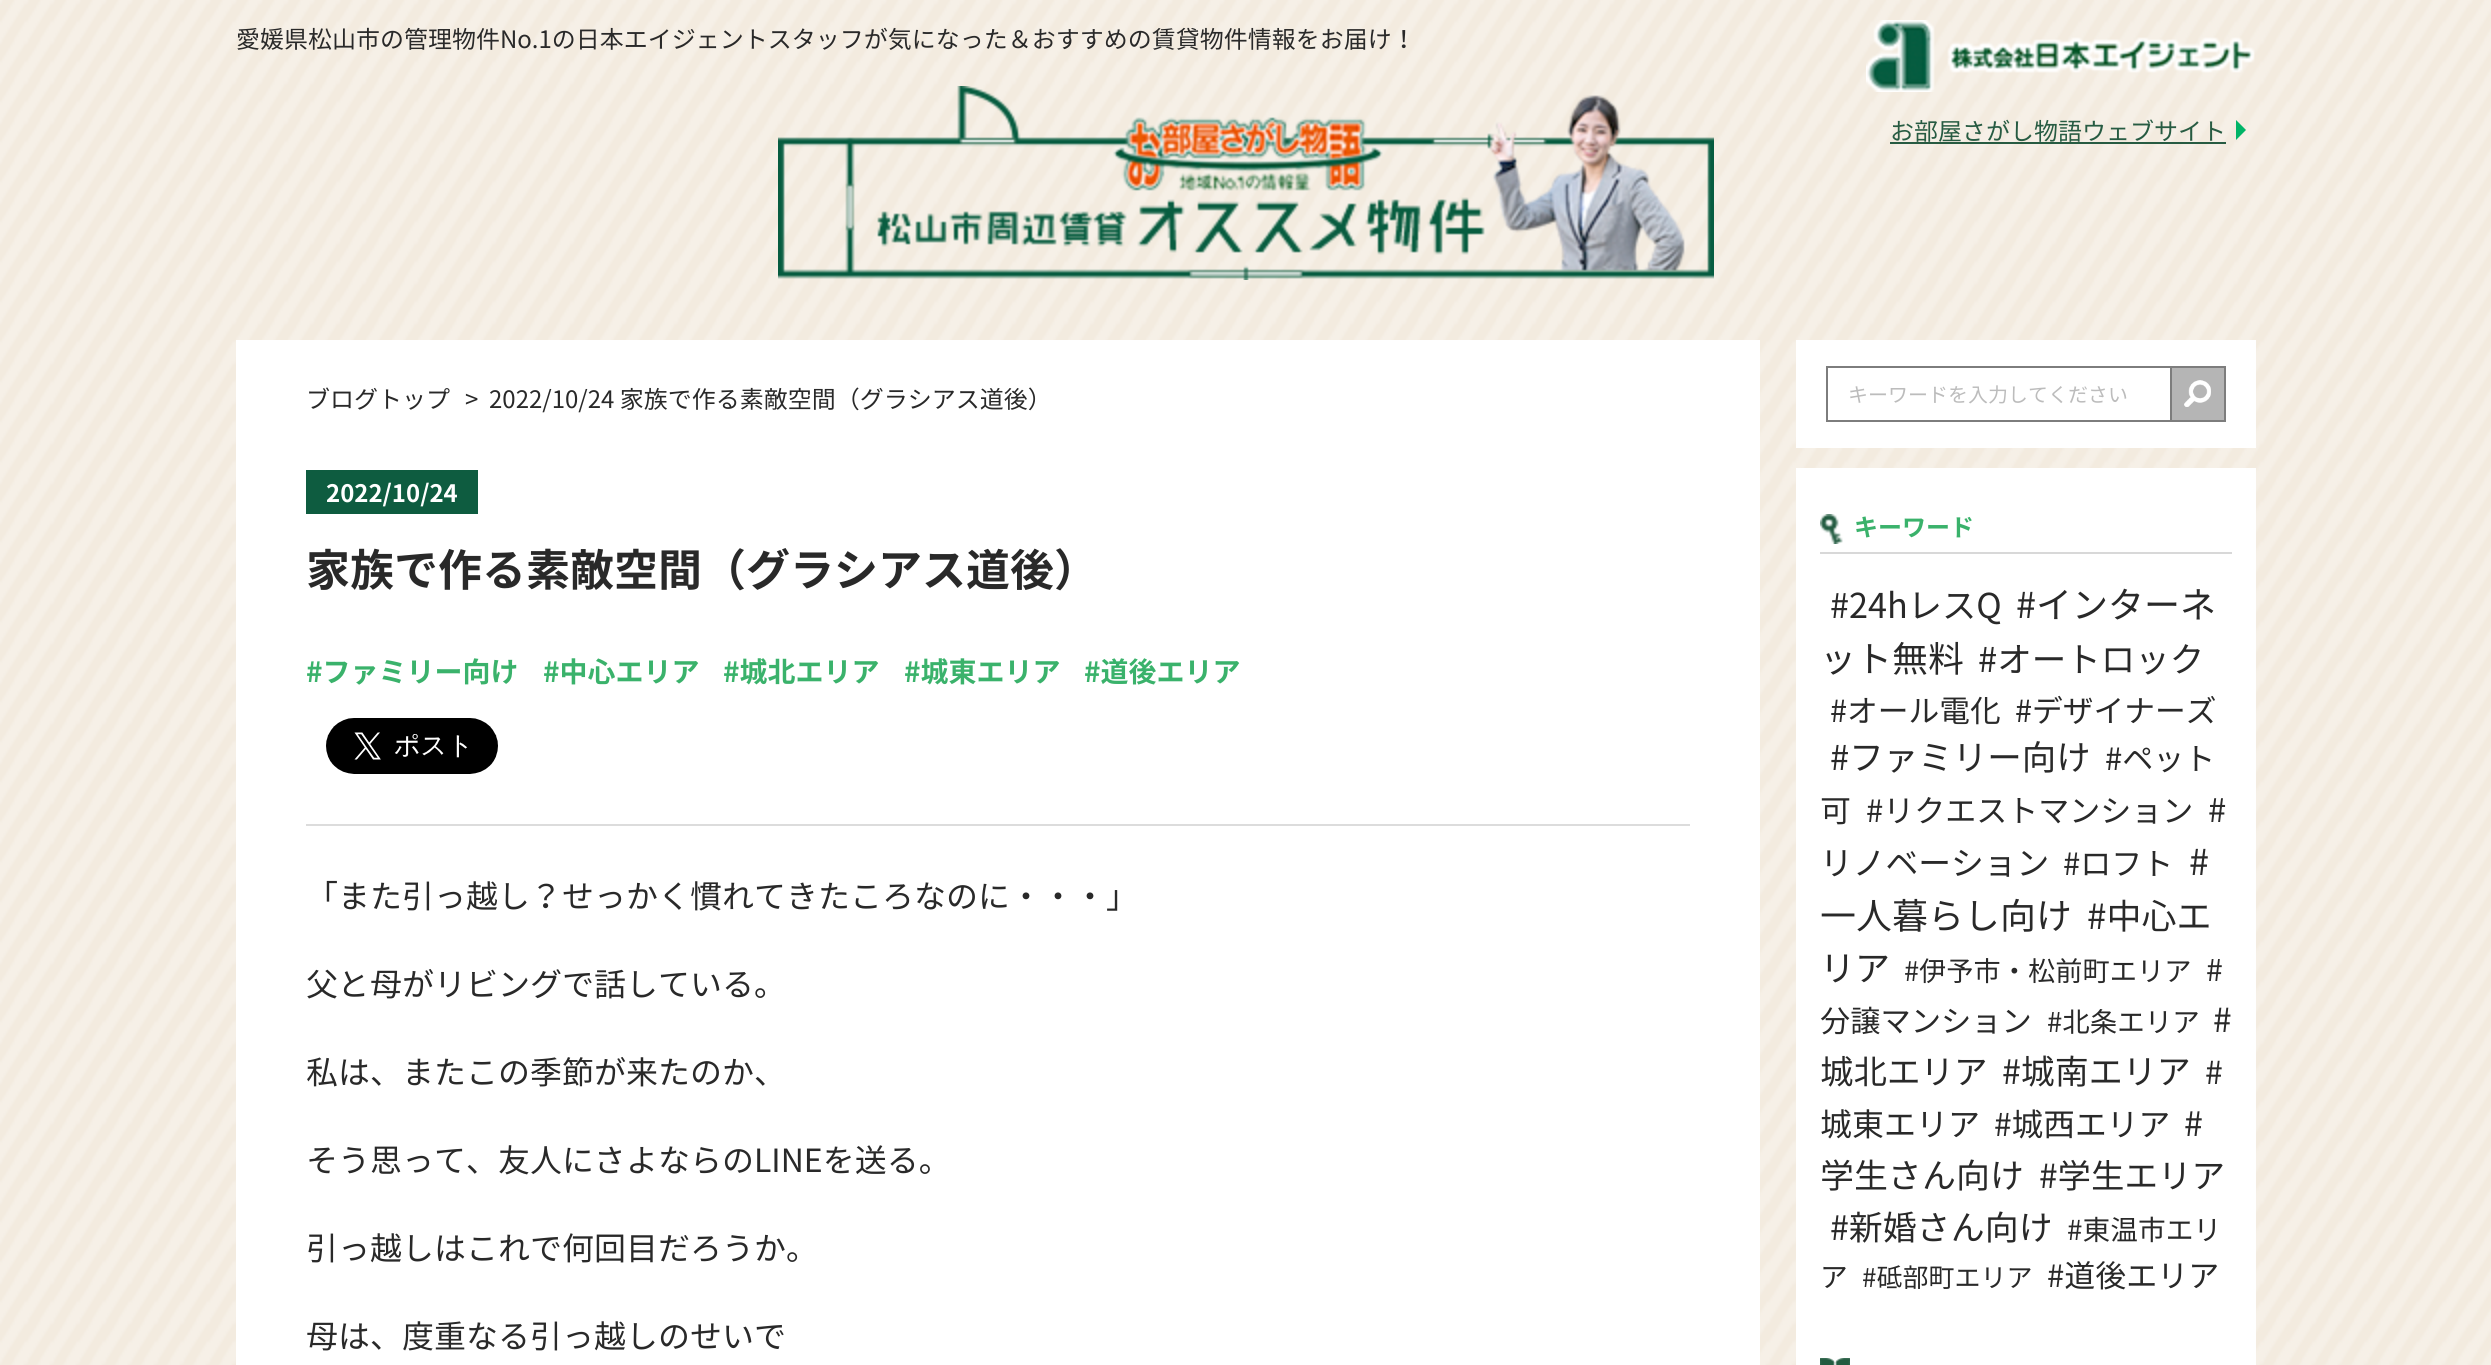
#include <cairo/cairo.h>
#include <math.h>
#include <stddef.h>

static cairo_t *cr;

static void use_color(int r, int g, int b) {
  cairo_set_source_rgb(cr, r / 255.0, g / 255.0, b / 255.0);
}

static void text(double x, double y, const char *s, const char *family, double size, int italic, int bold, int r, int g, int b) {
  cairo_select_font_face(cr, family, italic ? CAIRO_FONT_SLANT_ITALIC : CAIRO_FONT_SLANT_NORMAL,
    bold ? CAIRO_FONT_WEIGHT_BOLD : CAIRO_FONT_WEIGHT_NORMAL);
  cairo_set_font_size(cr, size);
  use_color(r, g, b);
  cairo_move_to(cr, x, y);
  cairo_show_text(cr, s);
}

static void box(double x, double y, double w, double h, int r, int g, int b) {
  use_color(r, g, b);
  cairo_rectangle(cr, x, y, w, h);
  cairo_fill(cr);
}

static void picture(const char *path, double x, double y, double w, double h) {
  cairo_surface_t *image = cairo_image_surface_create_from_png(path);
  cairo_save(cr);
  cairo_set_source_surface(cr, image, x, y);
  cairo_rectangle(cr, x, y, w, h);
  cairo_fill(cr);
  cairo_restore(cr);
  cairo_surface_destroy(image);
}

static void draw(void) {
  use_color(255, 255, 255);
  cairo_paint(cr);
  picture("img_01.png", 0, 0, 2491, 1365);
  picture("img_02.png", 778, 86, 936, 194);
  picture("img_03.png", 1866, 20, 389, 72);
  box(1890, 142, 336, 2, 39, 91, 66);
  use_color(0, 180, 103);
  cairo_new_path(cr);
  cairo_move_to(cr, 2236, 140);
  cairo_line_to(cr, 2236, 120);
  cairo_line_to(cr, 2246, 130);
  cairo_close_path(cr);
  cairo_fill(cr);
  box(236, 340, 1524, 1025, 255, 255, 255);
  box(306, 824, 1384, 2, 220, 220, 220);
  box(306, 470, 172, 44, 14, 92, 64);
  picture("img_04.png", 326, 718, 172, 56);
  box(1796, 340, 460, 108, 255, 255, 255);
  cairo_rectangle(cr, 1827, 367, 398, 54);
  use_color(125, 125, 125);
  cairo_stroke(cr);
  box(2170, 368, 2, 52, 125, 125, 125);
  picture("img_05.png", 2172, 368, 52, 52);
  box(1796, 468, 460, 897, 255, 255, 255);
  box(1820, 552, 412, 2, 216, 216, 216);
  picture("img_06.png", 1820, 514, 23, 30);
  picture("img_07.png", 1820, 1358, 30, 7);
  text(236, 48, "愛媛県松山市の管理物件No.1の日本エイジェントスタッフが気になった＆おすすめの賃貸物件情報をお届け！", "Noto Sans JP", 24, 0, 0, 41, 41, 41);
  text(1890, 140, "お部屋さがし物語ウェブサイト", "Noto Sans JP", 24, 0, 0, 39, 91, 66);
  text(306, 408, "ブログトップ", "Noto Sans JP", 24, 0, 0, 41, 41, 41);
  text(465, 408, ">", "Noto Sans JP", 24, 0, 0, 41, 41, 41);
  text(489, 408, "2022/10/24 家族で作る素敵空間（グラシアス道後）", "Noto Sans JP", 24, 0, 0, 41, 41, 41);
  text(326, 502, "2022/10/24", "Noto Sans JP", 24, 0, 1, 255, 255, 255);
  text(306, 586, "家族で作る素敵空間（グラシアス道後）", "Noto Sans JP", 44, 0, 1, 41, 41, 41);
  text(306, 682, "#ファミリー向け", "Noto Sans JP", 28, 0, 1, 58, 178, 107);
  text(543, 682, "#中心エリア", "Noto Sans JP", 28, 0, 1, 58, 178, 107);
  text(723, 682, "#城北エリア", "Noto Sans JP", 28, 0, 1, 58, 178, 107);
  text(904, 682, "#城東エリア", "Noto Sans JP", 28, 0, 1, 58, 178, 107);
  text(1084, 682, "#道後エリア", "Noto Sans JP", 28, 0, 1, 58, 178, 107);
  text(306, 908, "「また引っ越し？せっかく慣れてきたころなのに・・・」", "Noto Sans JP", 32, 0, 0, 41, 41, 41);
  text(306, 996, "父と母がリビングで話している。", "Noto Sans JP", 32, 0, 0, 41, 41, 41);
  text(306, 1084, "私は、またこの季節が来たのか、", "Noto Sans JP", 32, 0, 0, 41, 41, 41);
  text(306, 1172, "そう思って、友人にさよならのLINEを送る。", "Noto Sans JP", 32, 0, 0, 41, 41, 41);
  text(306, 1260, "引っ越しはこれで何回目だろうか。", "Noto Sans JP", 32, 0, 0, 41, 41, 41);
  text(306, 1348, "母は、度重なる引っ越しのせいで", "Noto Sans JP", 32, 0, 0, 41, 41, 41);
  text(1848, 402, "キーワードを入力してください", "Noto Sans JP", 20, 0, 0, 188, 188, 188);
  text(1854, 536, "キーワード", "Noto Sans JP", 24, 0, 1, 58, 178, 107);
  text(1830, 618, "#24hレスQ", "Noto Sans JP", 34.25, 0, 0, 41, 41, 41);
  text(2016, 618, "#インターネ", "Noto Sans JP", 36, 0, 0, 41, 41, 41);
  text(1820, 672, "ット無料", "Noto Sans JP", 36, 0, 0, 41, 41, 41);
  text(1978, 672, "#オートロック", "Noto Sans JP", 34.5, 0, 0, 41, 41, 41);
  text(1830, 722, "#オール電化", "Noto Sans JP", 30.75, 0, 0, 41, 41, 41);
  text(2015, 722, "#デザイナーズ", "Noto Sans JP", 30.75, 0, 0, 41, 41, 41);
  text(1830, 770, "#ファミリー向け", "Noto Sans JP", 34.5, 0, 0, 41, 41, 41);
  text(2105, 770, "#ペット", "Noto Sans JP", 31, 0, 0, 41, 41, 41);
  text(1820, 822, "可", "Noto Sans JP", 31, 0, 0, 41, 41, 41);
  text(1866, 822, "#リクエストマンション", "Noto Sans JP", 31, 0, 0, 41, 41, 41);
  text(2208, 822, "#", "Noto Sans JP", 32.75, 0, 0, 41, 41, 41);
  text(1820, 875, "リノベーション", "Noto Sans JP", 32.75, 0, 0, 41, 41, 41);
  text(2063, 875, "#ロフト", "Noto Sans JP", 31, 0, 0, 41, 41, 41);
  text(2189, 875, "#", "Noto Sans JP", 36, 0, 0, 41, 41, 41);
  text(1820, 929, "一人暮らし向け", "Noto Sans JP", 36, 0, 0, 41, 41, 41);
  text(2087, 929, "#中心エ", "Noto Sans JP", 35, 0, 0, 41, 41, 41);
  text(1820, 981, "リア", "Noto Sans JP", 35, 0, 0, 41, 41, 41);
  text(1904, 981, "#伊予市・松前町エリア", "Noto Sans JP", 27.25, 0, 0, 41, 41, 41);
  text(2206, 981, "#", "Noto Sans JP", 30.25, 0, 0, 41, 41, 41);
  text(1820, 1032, "分譲マンション", "Noto Sans JP", 30.25, 0, 0, 41, 41, 41);
  text(2047, 1032, "#北条エリア", "Noto Sans JP", 27.5, 0, 0, 41, 41, 41);
  text(2213, 1032, "#", "Noto Sans JP", 33.5, 0, 0, 41, 41, 41);
  text(1820, 1084, "城北エリア", "Noto Sans JP", 33.5, 0, 0, 41, 41, 41);
  text(2002, 1084, "#城南エリア", "Noto Sans JP", 34, 0, 0, 41, 41, 41);
  text(2205, 1084, "#", "Noto Sans JP", 32, 0, 0, 41, 41, 41);
  text(1820, 1136, "城東エリア", "Noto Sans JP", 32, 0, 0, 41, 41, 41);
  text(1994, 1136, "#城西エリア", "Noto Sans JP", 31.75, 0, 0, 41, 41, 41);
  text(2184, 1136, "#", "Noto Sans JP", 34, 0, 0, 41, 41, 41);
  text(1820, 1188, "学生さん向け", "Noto Sans JP", 34, 0, 0, 41, 41, 41);
  text(2039, 1188, "#学生エリア", "Noto Sans JP", 33.5, 0, 0, 41, 41, 41);
  text(1830, 1240, "#新婚さん向け", "Noto Sans JP", 34, 0, 0, 41, 41, 41);
  text(2067, 1240, "#東温市エリ", "Noto Sans JP", 27.75, 0, 0, 41, 41, 41);
  text(1820, 1287, "ア", "Noto Sans JP", 27.75, 0, 0, 41, 41, 41);
  text(1862, 1287, "#砥部町エリア", "Noto Sans JP", 26, 0, 0, 41, 41, 41);
  text(2047, 1287, "#道後エリア", "Noto Sans JP", 31, 0, 0, 41, 41, 41);
}

int main(void) {
  cairo_surface_t *surface = cairo_image_surface_create(CAIRO_FORMAT_RGB24, 2491, 1365);
  cr = cairo_create(surface);
  cairo_font_options_t *options = cairo_font_options_create();
  cairo_font_options_set_hint_metrics(options, CAIRO_HINT_METRICS_OFF);
  cairo_font_options_set_hint_style(options, CAIRO_HINT_STYLE_NONE);
  cairo_set_font_options(cr, options);
  cairo_set_miter_limit(cr, 4);
  draw();
  cairo_surface_write_to_png(surface, "out.png");
  cairo_font_options_destroy(options);
  cairo_destroy(cr);
  cairo_surface_destroy(surface);
  return 0;
}
